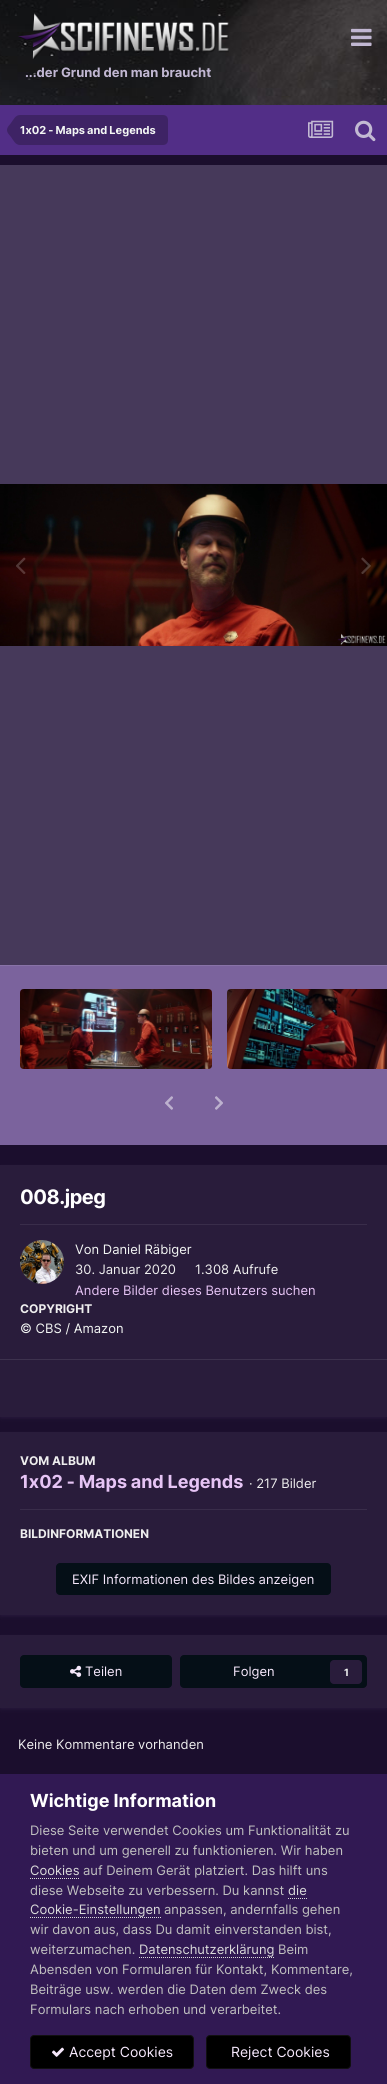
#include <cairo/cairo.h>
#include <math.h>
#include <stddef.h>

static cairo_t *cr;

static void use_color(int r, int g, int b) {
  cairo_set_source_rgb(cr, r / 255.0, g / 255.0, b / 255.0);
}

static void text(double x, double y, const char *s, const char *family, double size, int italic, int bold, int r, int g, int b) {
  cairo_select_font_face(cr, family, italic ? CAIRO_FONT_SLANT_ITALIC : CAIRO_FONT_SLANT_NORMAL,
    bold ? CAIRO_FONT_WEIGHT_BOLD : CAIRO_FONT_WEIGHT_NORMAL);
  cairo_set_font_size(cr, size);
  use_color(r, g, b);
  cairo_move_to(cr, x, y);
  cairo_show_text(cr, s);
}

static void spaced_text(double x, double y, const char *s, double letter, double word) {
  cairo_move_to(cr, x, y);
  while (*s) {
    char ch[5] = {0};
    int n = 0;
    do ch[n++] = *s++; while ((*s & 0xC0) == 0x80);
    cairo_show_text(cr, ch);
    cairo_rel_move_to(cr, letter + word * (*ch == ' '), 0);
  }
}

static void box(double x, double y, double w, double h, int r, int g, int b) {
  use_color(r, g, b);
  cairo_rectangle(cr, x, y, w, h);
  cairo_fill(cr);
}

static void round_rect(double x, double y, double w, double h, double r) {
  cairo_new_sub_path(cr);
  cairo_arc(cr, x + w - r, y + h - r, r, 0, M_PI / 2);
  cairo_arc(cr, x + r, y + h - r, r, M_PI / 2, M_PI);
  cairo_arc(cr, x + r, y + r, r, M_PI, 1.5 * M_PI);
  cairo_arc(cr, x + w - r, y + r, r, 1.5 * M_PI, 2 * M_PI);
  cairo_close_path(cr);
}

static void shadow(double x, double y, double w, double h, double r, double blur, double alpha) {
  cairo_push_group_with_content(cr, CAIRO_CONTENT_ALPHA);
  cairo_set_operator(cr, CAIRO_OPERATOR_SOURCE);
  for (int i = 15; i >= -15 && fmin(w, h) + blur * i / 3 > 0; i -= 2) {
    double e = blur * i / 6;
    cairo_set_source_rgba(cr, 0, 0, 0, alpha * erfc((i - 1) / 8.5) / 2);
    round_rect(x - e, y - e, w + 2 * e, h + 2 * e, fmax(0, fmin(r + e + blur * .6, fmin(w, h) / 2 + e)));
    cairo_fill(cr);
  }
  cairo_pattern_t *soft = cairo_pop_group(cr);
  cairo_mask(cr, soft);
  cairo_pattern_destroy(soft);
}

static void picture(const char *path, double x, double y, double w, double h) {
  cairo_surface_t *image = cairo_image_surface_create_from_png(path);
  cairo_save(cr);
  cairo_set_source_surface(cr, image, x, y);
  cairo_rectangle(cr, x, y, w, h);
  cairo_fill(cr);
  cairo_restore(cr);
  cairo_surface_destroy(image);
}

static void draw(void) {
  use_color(27, 14, 45);
  cairo_paint(cr);
  picture("img_01.png", 0, 0, 387, 105);
  picture("img_02.png", 18, 13, 211, 46);
  picture("img_03.png", 351, 28, 21, 18);
  box(0, 105, 387, 50, 82, 46, 135);
  use_color(62, 35, 101);
  cairo_new_path(cr);
  cairo_move_to(cr, 20, 115);
  cairo_line_to(cr, 163, 115);
  cairo_curve_to(cr, 166, 115, 168, 117, 168, 120);
  cairo_line_to(cr, 168, 140);
  cairo_curve_to(cr, 168, 143, 166, 145, 163, 145);
  cairo_line_to(cr, 20, 145);
  cairo_close_path(cr);
  cairo_fill(cr);
  cairo_new_path(cr);
  cairo_move_to(cr, 20, 130);
  cairo_line_to(cr, 20, 145);
  cairo_curve_to(cr, 15.5, 145, 13.5, 140.5, 11, 137);
  cairo_curve_to(cr, 9.5, 135, 7, 133, 7, 130);
  cairo_close_path(cr);
  cairo_move_to(cr, 20, 130);
  cairo_line_to(cr, 7, 130);
  cairo_curve_to(cr, 7, 127, 9.5, 125, 11, 123);
  cairo_curve_to(cr, 13.5, 119.5, 15.5, 115, 20, 115);
  cairo_close_path(cr);
  cairo_fill(cr);
  picture("img_04.png", 308, 120, 26, 18);
  picture("img_05.png", 355, 120, 21, 22);
  box(0, 165, 387, 800, 70, 57, 90);
  picture("img_06.png", 0, 484, 387, 162);
  picture("img_07.png", 16, 557, 10, 17);
  picture("img_08.png", 361, 557, 10, 17);
  box(0, 966, 387, 179, 123, 99, 157);
  box(0, 965, 387, 1, 136, 115, 167);
  picture("img_09.png", 20, 989, 192, 80);
  picture("img_10.png", 227, 989, 160, 80);
  picture("img_11.png", 165, 1096, 8, 14);
  picture("img_12.png", 215, 1096, 8, 14);
  use_color(175, 142, 224);
  shadow(1, 1168, 385, 250, 0, 2, 0.1);
  box(0, 1165, 387, 252, 41, 28, 59);
  box(20, 1224, 347, 1, 57, 45, 74);
  picture("img_13.png", 20, 1240, 44, 44);
  box(0, 1359, 387, 1, 61, 50, 78);
  use_color(175, 142, 224);
  shadow(1, 1435, 385, 181, 0, 2, 0.1);
  box(0, 1432, 387, 183, 41, 28, 59);
  box(20, 1509, 347, 1, 57, 45, 74);
  use_color(5, 15, 23);
  round_rect(56, 1563, 275, 32, 4);
  cairo_fill(cr);
  use_color(175, 142, 224);
  shadow(1, 1638, 385, 71, 0, 2, 0.1);
  box(0, 1635, 387, 73, 41, 28, 59);
  use_color(5, 15, 23);
  round_rect(20, 1655, 152, 33, 4);
  cairo_fill(cr);
  picture("img_14.png", 70, 1665, 12, 12);
  round_rect(180, 1655, 187, 33, 4);
  cairo_fill(cr);
  use_color(41, 28, 59);
  round_rect(330, 1660, 32, 24, 4);
  cairo_fill(cr);
  box(0, 1774, 387, 310, 49, 25, 83);
  cairo_new_path(cr);
  cairo_move_to(cr, 30, 1878.5);
  cairo_line_to(cr, 80, 1878.5);
  use_color(218, 218, 218);
  cairo_set_line_width(cr, 1);
  cairo_set_dash(cr, (double[]){1, 1}, 2, 0);
  cairo_stroke(cr);
  cairo_new_path(cr);
  cairo_move_to(cr, 288, 1898.5);
  cairo_line_to(cr, 307, 1898.5);
  cairo_stroke(cr);
  cairo_new_path(cr);
  cairo_move_to(cr, 30, 1917.5);
  cairo_line_to(cr, 161, 1917.5);
  cairo_stroke(cr);
  cairo_new_path(cr);
  cairo_move_to(cr, 139, 1957.5);
  cairo_line_to(cr, 274, 1957.5);
  cairo_stroke(cr);
  use_color(0, 0, 0);
  round_rect(30, 2035, 164, 34, 4);
  cairo_fill(cr);
  round_rect(30.5, 2035.5, 163, 33, 3.5);
  cairo_set_source_rgba(cr, 0.965, 0.91, 0.988, 0.07);
  cairo_set_dash(cr, NULL, 0, 0);
  cairo_stroke(cr);
  picture("img_15.png", 52, 2047, 12, 10);
  use_color(0, 0, 0);
  round_rect(206, 2035, 145, 34, 4);
  cairo_fill(cr);
  round_rect(206.5, 2035.5, 144, 33, 3.5);
  cairo_set_source_rgba(cr, 0.965, 0.91, 0.988, 0.07);
  cairo_stroke(cr);
  text(25, 77, "...der Grund den man braucht", "Inter", 13, 0, 1, 193, 183, 210);
  cairo_set_font_size(cr, 11);
  use_color(243, 246, 244);
  spaced_text(20, 134, "1x02 - Maps and Legends", 0, -0.5);
  cairo_set_font_size(cr, 20);
  use_color(255, 255, 255);
  spaced_text(20, 1204, "008.jpeg", -0.5, 0);
  text(75, 1254, "Von Daniel Räbiger", "Inter", 13, 0, 0, 243, 246, 244);
  text(75, 1274, "30. Januar 2020", "Inter", 13, 0, 0, 238, 238, 238);
  text(195, 1274, "1.308 Aufrufe", "Inter", 13, 0, 0, 238, 238, 238);
  text(75, 1295, "Andere Bilder dieses Benutzers suchen", "Inter", 13, 0, 0, 230, 196, 245);
  text(20, 1313, "COPYRIGHT", "Inter", 12, 0, 1, 238, 238, 238);
  text(20, 1333, "© CBS / Amazon", "Inter", 13, 0, 0, 243, 246, 244);
  text(20, 1465, "VOM ALBUM", "Inter", 12, 0, 1, 238, 238, 238);
  cairo_set_font_size(cr, 18);
  use_color(230, 196, 245);
  spaced_text(20, 1488, "1x02 - Maps and Legends", 0, -0.5);
  text(249, 1488, "· 217 Bilder", "Inter", 13, 0, 0, 238, 238, 238);
  text(20, 1538, "BILDINFORMATIONEN", "Inter", 12, 0, 1, 238, 238, 238);
  text(72, 1584, "EXIF Informationen des Bildes anzeigen", "Inter", 13, 0, 0, 246, 232, 252);
  text(85, 1676, "Teilen", "Inter", 13, 0, 0, 246, 232, 252);
  text(233, 1676, "Folgen", "Inter", 13, 0, 0, 246, 232, 252);
  text(344, 1676, "1", "Inter", 10, 0, 1, 243, 246, 244);
  text(18, 1749, "Keine Kommentare vorhanden", "Inter", 13, 0, 0, 238, 238, 238);
  text(30, 1807, "Wichtige Information", "Inter", 18, 0, 1, 255, 255, 255);
  text(30, 1835, "Diese Seite verwendet Cookies um Funktionalität zu", "Inter", 13, 0, 0, 192, 192, 192);
  text(30, 1855, "bieten und um generell zu funktionieren. Wir haben", "Inter", 13, 0, 0, 192, 192, 192);
  text(30, 1875, "Cookies", "Inter", 13, 0, 0, 218, 218, 218);
  text(83, 1875, "auf Deinem Gerät platziert. Das hilft uns", "Inter", 13, 0, 0, 192, 192, 192);
  text(30, 1895, "diese Webseite zu verbessern. Du kannst", "Inter", 13, 0, 0, 192, 192, 192);
  text(288, 1895, "die", "Inter", 13, 0, 0, 218, 218, 218);
  text(30, 1914, "Cookie-Einstellungen", "Inter", 13, 0, 0, 218, 218, 218);
  text(164, 1914, "anpassen, andernfalls gehen", "Inter", 13, 0, 0, 192, 192, 192);
  text(30, 1934, "wir davon aus, dass Du damit einverstanden bist,", "Inter", 13, 0, 0, 192, 192, 192);
  text(30, 1954, "weiterzumachen.", "Inter", 13, 0, 0, 192, 192, 192);
  text(139, 1954, "Datenschutzerklärung", "Inter", 13, 0, 0, 218, 218, 218);
  text(278, 1954, "Beim", "Inter", 13, 0, 0, 192, 192, 192);
  text(30, 1974, "Abensden von Formularen für Kontakt, Kommentare,", "Inter", 13, 0, 0, 192, 192, 192);
  text(30, 1994, "Beiträge usw. werden die Daten dem Zweck des", "Inter", 13, 0, 0, 192, 192, 192);
  text(30, 2014, "Formulars nach erhoben und verarbeitet.", "Inter", 13, 0, 0, 192, 192, 192);
  text(69, 2057, "Accept Cookies", "Inter", 14, 0, 0, 246, 232, 252);
  text(231, 2057, "Reject Cookies", "Inter", 14, 0, 0, 246, 232, 252);
}

int main(void) {
  cairo_surface_t *surface = cairo_image_surface_create(CAIRO_FORMAT_RGB24, 387, 2084);
  cr = cairo_create(surface);
  cairo_font_options_t *options = cairo_font_options_create();
  cairo_font_options_set_hint_metrics(options, CAIRO_HINT_METRICS_OFF);
  cairo_font_options_set_hint_style(options, CAIRO_HINT_STYLE_NONE);
  cairo_set_font_options(cr, options);
  cairo_set_miter_limit(cr, 4);
  draw();
  cairo_surface_write_to_png(surface, "out.png");
  cairo_font_options_destroy(options);
  cairo_destroy(cr);
  cairo_surface_destroy(surface);
  return 0;
}
